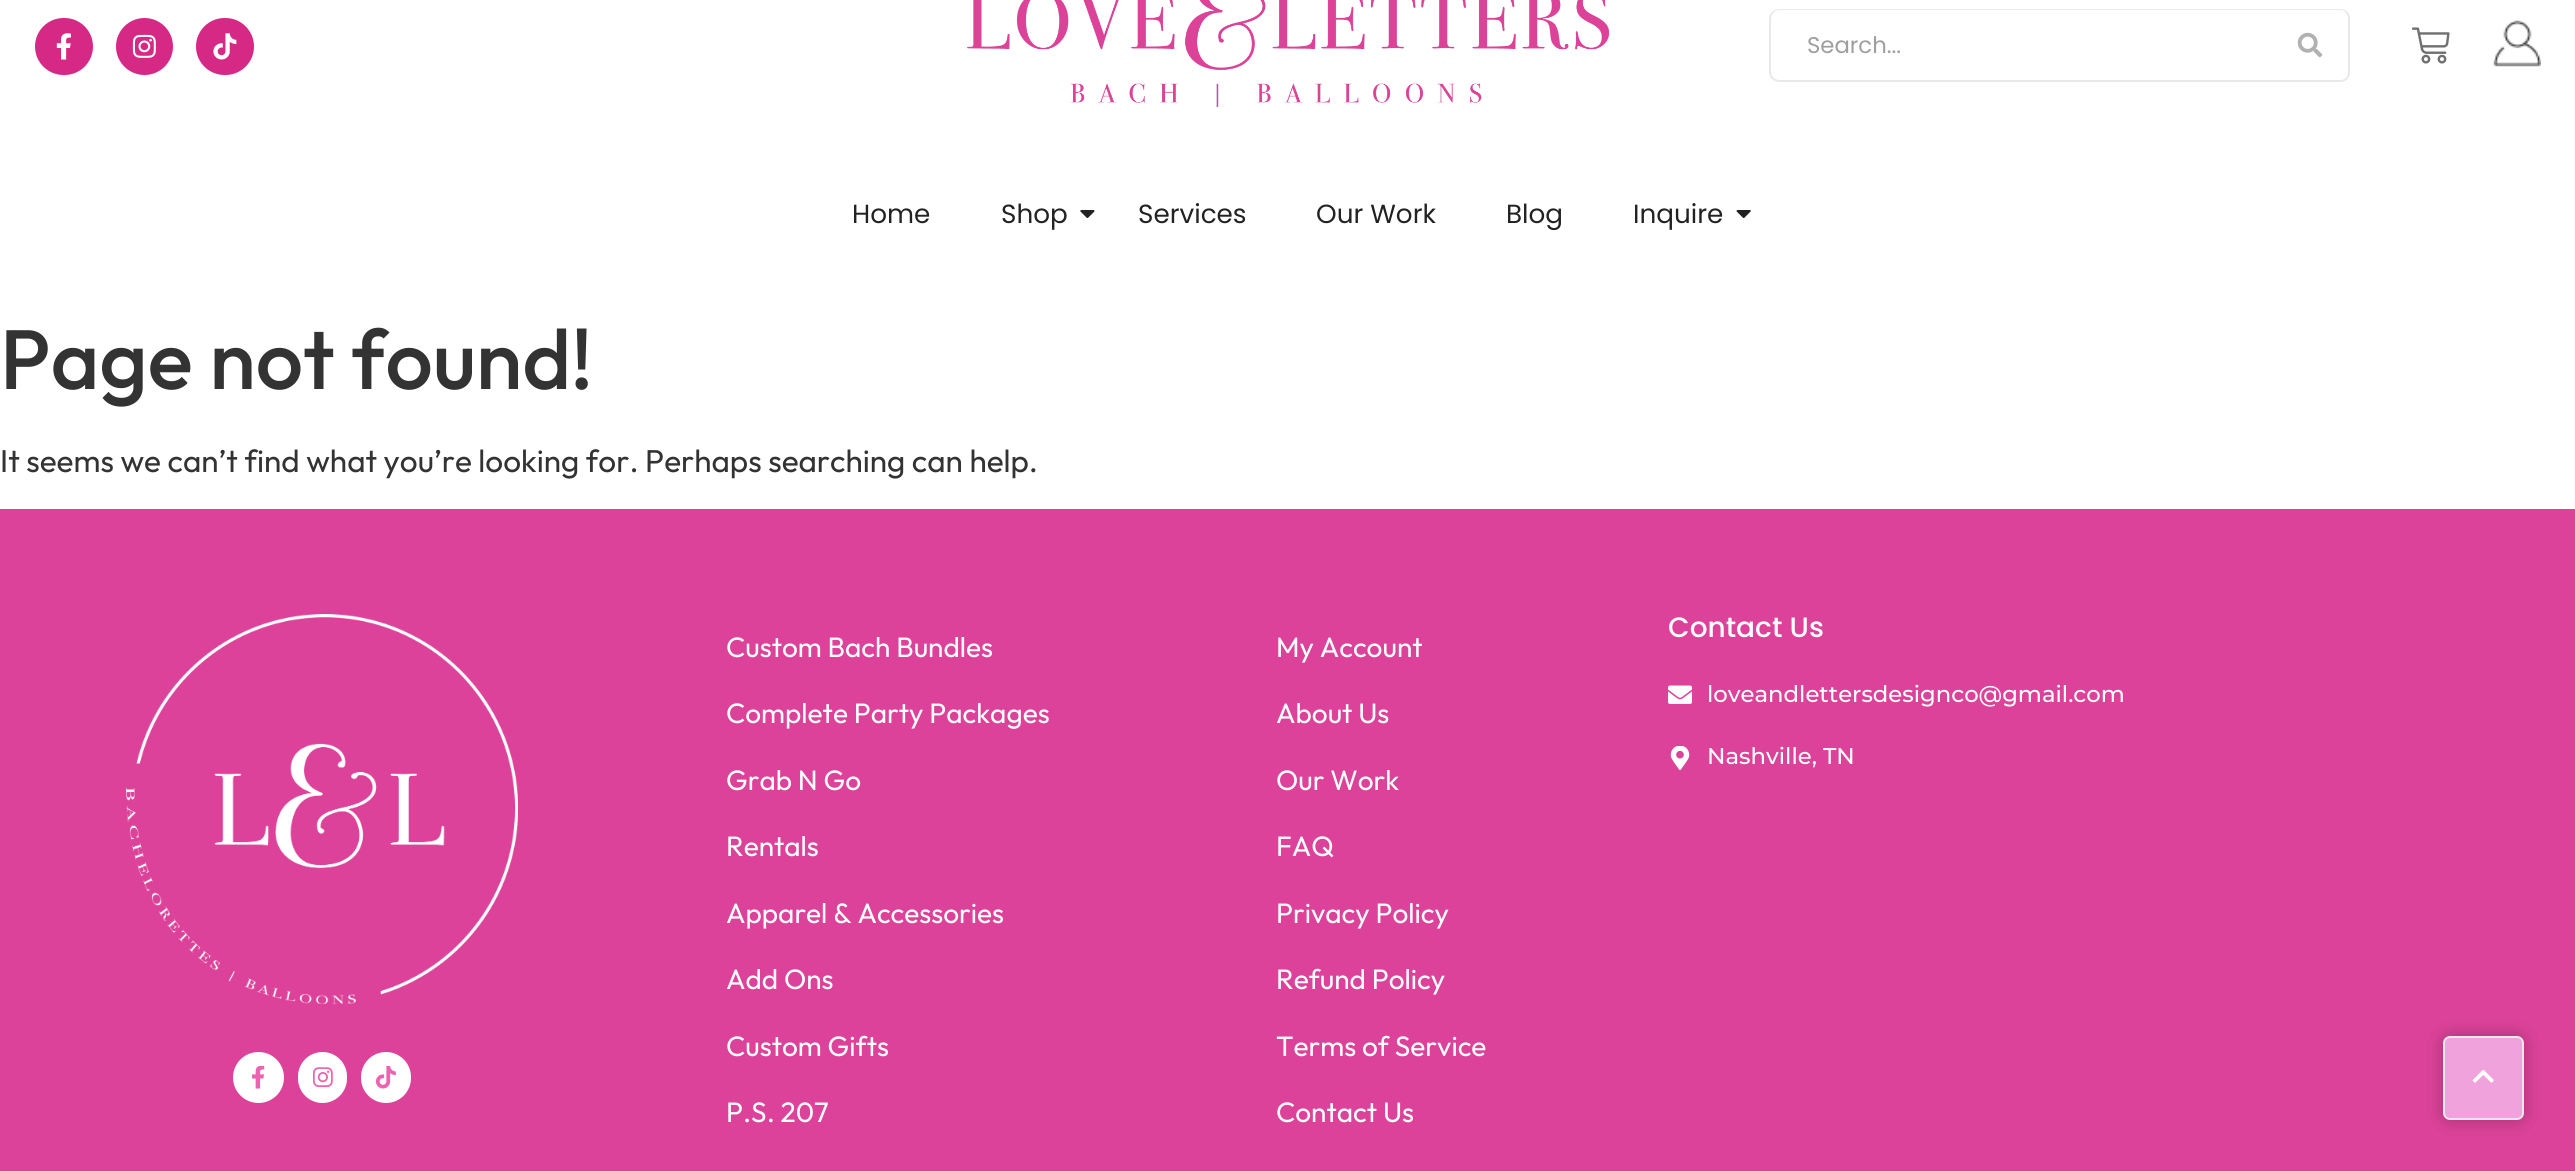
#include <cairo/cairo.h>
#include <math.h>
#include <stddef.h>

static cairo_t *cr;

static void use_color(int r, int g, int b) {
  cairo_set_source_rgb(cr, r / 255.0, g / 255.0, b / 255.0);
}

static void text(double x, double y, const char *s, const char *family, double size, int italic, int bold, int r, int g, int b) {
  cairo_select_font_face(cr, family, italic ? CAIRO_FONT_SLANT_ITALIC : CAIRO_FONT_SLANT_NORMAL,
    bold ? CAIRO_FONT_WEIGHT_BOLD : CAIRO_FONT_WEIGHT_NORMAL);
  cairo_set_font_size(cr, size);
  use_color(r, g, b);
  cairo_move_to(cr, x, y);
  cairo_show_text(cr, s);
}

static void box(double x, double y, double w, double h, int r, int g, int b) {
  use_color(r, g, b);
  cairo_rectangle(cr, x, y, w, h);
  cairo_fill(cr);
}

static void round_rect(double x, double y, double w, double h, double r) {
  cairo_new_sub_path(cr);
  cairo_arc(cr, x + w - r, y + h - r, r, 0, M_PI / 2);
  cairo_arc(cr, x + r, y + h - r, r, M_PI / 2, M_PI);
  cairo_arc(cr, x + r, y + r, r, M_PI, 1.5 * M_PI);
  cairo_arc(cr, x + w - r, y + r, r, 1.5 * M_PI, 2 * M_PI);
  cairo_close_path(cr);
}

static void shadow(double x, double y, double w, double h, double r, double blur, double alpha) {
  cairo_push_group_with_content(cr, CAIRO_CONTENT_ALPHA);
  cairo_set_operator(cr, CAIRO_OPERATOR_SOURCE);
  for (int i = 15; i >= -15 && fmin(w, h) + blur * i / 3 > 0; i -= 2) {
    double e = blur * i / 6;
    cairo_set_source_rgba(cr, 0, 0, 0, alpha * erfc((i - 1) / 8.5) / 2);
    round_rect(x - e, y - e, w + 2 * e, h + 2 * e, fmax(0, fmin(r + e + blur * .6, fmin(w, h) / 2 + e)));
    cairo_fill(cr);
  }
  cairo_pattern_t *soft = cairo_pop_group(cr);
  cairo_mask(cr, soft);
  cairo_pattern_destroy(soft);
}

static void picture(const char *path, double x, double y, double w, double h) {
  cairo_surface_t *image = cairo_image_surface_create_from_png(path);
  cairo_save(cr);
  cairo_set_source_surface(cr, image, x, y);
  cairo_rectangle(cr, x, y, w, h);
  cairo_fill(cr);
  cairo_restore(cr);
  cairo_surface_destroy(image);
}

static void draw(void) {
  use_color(255, 255, 255);
  cairo_paint(cr);
  use_color(214, 40, 133);
  round_rect(35, 18, 58, 57, 28.5);
  cairo_fill(cr);
  picture("img_01.png", 56, 33, 15, 27);
  cairo_arc(cr, 144.5, 46.5, 28.5, 0, 2 * M_PI);
  cairo_fill(cr);
  picture("img_02.png", 132, 34, 24, 24);
  round_rect(196, 18, 58, 57, 28.5);
  cairo_fill(cr);
  picture("img_03.png", 213, 33, 24, 27);
  picture("img_04.png", 967, 0, 643, 107);
  use_color(232, 232, 232);
  cairo_set_fill_rule(cr, CAIRO_FILL_RULE_EVEN_ODD);
  cairo_new_path(cr);
  cairo_move_to(cr, 1780, 9);
  cairo_line_to(cr, 2272, 9);
  cairo_line_to(cr, 2272, 82);
  cairo_line_to(cr, 1780, 82);
  cairo_curve_to(cr, 1774, 82, 1769, 78, 1769, 72);
  cairo_line_to(cr, 1769, 19);
  cairo_curve_to(cr, 1769, 13, 1774, 9, 1780, 9);
  cairo_close_path(cr);
  cairo_move_to(cr, 1780, 10);
  cairo_line_to(cr, 2272, 10);
  cairo_line_to(cr, 2272, 80);
  cairo_line_to(cr, 1780, 80);
  cairo_curve_to(cr, 1775, 80, 1771, 77, 1771, 72);
  cairo_line_to(cr, 1771, 19);
  cairo_curve_to(cr, 1771, 14, 1775, 10, 1780, 10);
  cairo_close_path(cr);
  cairo_fill(cr);
  cairo_new_path(cr);
  cairo_move_to(cr, 2272, 9);
  cairo_line_to(cr, 2340, 9);
  cairo_curve_to(cr, 2346, 9, 2350, 13, 2350, 19);
  cairo_line_to(cr, 2350, 72);
  cairo_curve_to(cr, 2350, 78, 2346, 82, 2340, 82);
  cairo_line_to(cr, 2272, 82);
  cairo_close_path(cr);
  cairo_move_to(cr, 2272, 10);
  cairo_line_to(cr, 2340, 10);
  cairo_curve_to(cr, 2345, 10, 2348, 14, 2348, 19);
  cairo_line_to(cr, 2348, 72);
  cairo_curve_to(cr, 2348, 77, 2345, 80, 2340, 80);
  cairo_line_to(cr, 2272, 80);
  cairo_close_path(cr);
  cairo_fill(cr);
  picture("img_05.png", 2297, 32, 26, 26);
  picture("img_06.png", 2412, 27, 38, 37);
  picture("img_07.png", 2493, 20, 48, 47);
  picture("img_08.png", 1080, 210, 15, 8);
  picture("img_09.png", 1736, 210, 15, 8);
  box(0, 509, 2575, 662, 220, 66, 153);
  picture("img_10.png", 126, 614, 392, 391);
  use_color(255, 255, 255);
  cairo_arc(cr, 258.5, 1077.5, 25.5, 0, 2 * M_PI);
  cairo_fill(cr);
  picture("img_11.png", 252, 1066, 13, 23);
  round_rect(298, 1052, 49, 51, 24.5);
  cairo_fill(cr);
  picture("img_12.png", 313, 1067, 20, 20);
  round_rect(361, 1052, 50, 51, 25);
  cairo_fill(cr);
  picture("img_13.png", 375, 1066, 21, 23);
  picture("img_14.png", 1668, 685, 24, 19);
  picture("img_15.png", 1670, 746, 20, 24);
  use_color(0, 0, 0);
  shadow(2443, 1036, 81, 84, 7, 9, 0.25);
  use_color(240, 162, 220);
  round_rect(2444, 1037, 79, 82, 6);
  cairo_fill_preserve(cr);
  use_color(232, 232, 232);
  cairo_stroke(cr);
  picture("img_16.png", 2472, 1070, 22, 13);
  text(1807, 53, "Search...", "Poppins", 22.75, 0, 0, 158, 158, 158);
  text(852, 223, "Home", "Poppins", 26.25, 0, 0, 34, 34, 34);
  text(1001, 223, "Shop", "Poppins", 26.25, 0, 0, 34, 34, 34);
  text(1138, 223, "Services", "Poppins", 26.25, 0, 0, 34, 34, 34);
  text(1316, 223, "Our Work", "Poppins", 26.25, 0, 0, 34, 34, 34);
  text(1506, 223, "Blog", "Poppins", 26.25, 0, 0, 34, 34, 34);
  text(1633, 223, "Inquire", "Poppins", 26.25, 0, 0, 34, 34, 34);
  text(0, 389, "Page not found!", "Outfit Medium", 84, 0, 0, 51, 51, 51);
  text(0, 472, "It seems we can’t find what you’re looking for. Perhaps searching can help.", "Outfit", 31.5, 0, 0, 51, 51, 51);
  text(726, 657, "Custom Bach Bundles", "Outfit", 28, 0, 0, 255, 255, 255);
  text(726, 723, "Complete Party Packages", "Outfit", 28, 0, 0, 255, 255, 255);
  text(726, 790, "Grab N Go", "Outfit", 28, 0, 0, 255, 255, 255);
  text(726, 856, "Rentals", "Outfit", 28, 0, 0, 255, 255, 255);
  text(726, 923, "Apparel & Accessories", "Outfit", 28, 0, 0, 255, 255, 255);
  text(726, 989, "Add Ons", "Outfit", 28, 0, 0, 255, 255, 255);
  text(726, 1056, "Custom Gifts", "Outfit", 28, 0, 0, 255, 255, 255);
  text(726, 1122, "P.S. 207", "Outfit", 28, 0, 0, 255, 255, 255);
  text(1276, 657, "My Account", "Outfit", 28, 0, 0, 255, 255, 255);
  text(1276, 723, "About Us", "Outfit", 28, 0, 0, 255, 255, 255);
  text(1276, 790, "Our Work", "Outfit", 28, 0, 0, 255, 255, 255);
  text(1276, 856, "FAQ", "Outfit", 28, 0, 0, 255, 255, 255);
  text(1276, 923, "Privacy Policy", "Outfit", 28, 0, 0, 255, 255, 255);
  text(1276, 989, "Refund Policy", "Outfit", 28, 0, 0, 255, 255, 255);
  text(1276, 1056, "Terms of Service", "Outfit", 28, 0, 0, 255, 255, 255);
  text(1276, 1122, "Contact Us", "Outfit", 28, 0, 0, 255, 255, 255);
  text(1668, 637, "Contact Us", "Poppins Medium", 28, 0, 0, 255, 255, 255);
  text(1707, 702, "loveandlettersdesignco@gmail.com", "Montserrat Medium", 22.75, 0, 0, 255, 255, 255);
  text(1707, 764, "Nashville, TN", "Montserrat Medium", 22.75, 0, 0, 255, 255, 255);
}

int main(void) {
  cairo_surface_t *surface = cairo_image_surface_create(CAIRO_FORMAT_RGB24, 2575, 1171);
  cr = cairo_create(surface);
  cairo_font_options_t *options = cairo_font_options_create();
  cairo_font_options_set_hint_metrics(options, CAIRO_HINT_METRICS_OFF);
  cairo_font_options_set_hint_style(options, CAIRO_HINT_STYLE_NONE);
  cairo_set_font_options(cr, options);
  cairo_set_miter_limit(cr, 4);
  draw();
  cairo_surface_write_to_png(surface, "out.png");
  cairo_font_options_destroy(options);
  cairo_destroy(cr);
  cairo_surface_destroy(surface);
  return 0;
}
